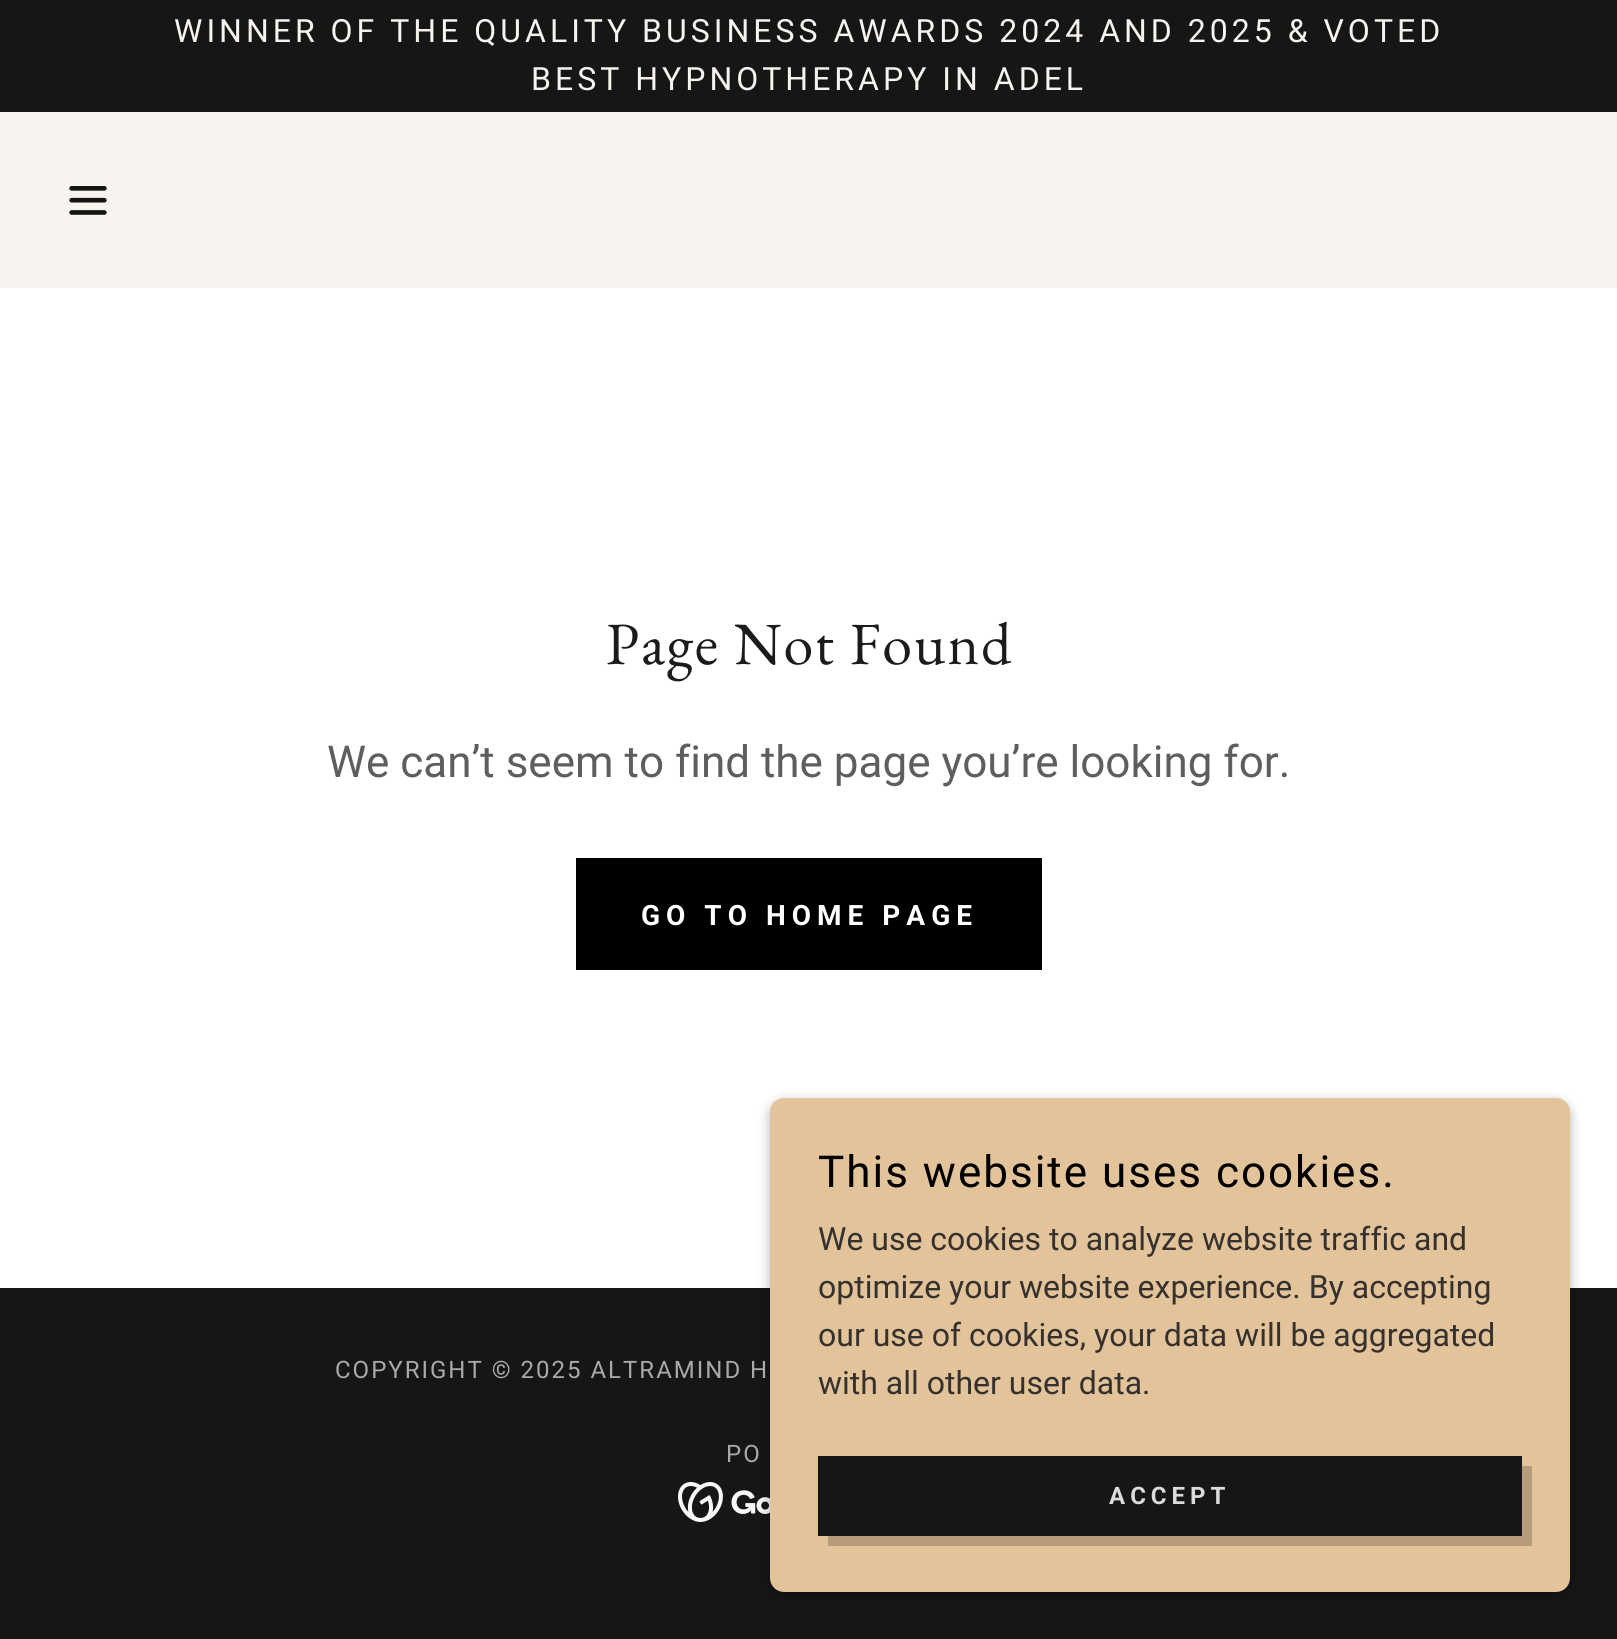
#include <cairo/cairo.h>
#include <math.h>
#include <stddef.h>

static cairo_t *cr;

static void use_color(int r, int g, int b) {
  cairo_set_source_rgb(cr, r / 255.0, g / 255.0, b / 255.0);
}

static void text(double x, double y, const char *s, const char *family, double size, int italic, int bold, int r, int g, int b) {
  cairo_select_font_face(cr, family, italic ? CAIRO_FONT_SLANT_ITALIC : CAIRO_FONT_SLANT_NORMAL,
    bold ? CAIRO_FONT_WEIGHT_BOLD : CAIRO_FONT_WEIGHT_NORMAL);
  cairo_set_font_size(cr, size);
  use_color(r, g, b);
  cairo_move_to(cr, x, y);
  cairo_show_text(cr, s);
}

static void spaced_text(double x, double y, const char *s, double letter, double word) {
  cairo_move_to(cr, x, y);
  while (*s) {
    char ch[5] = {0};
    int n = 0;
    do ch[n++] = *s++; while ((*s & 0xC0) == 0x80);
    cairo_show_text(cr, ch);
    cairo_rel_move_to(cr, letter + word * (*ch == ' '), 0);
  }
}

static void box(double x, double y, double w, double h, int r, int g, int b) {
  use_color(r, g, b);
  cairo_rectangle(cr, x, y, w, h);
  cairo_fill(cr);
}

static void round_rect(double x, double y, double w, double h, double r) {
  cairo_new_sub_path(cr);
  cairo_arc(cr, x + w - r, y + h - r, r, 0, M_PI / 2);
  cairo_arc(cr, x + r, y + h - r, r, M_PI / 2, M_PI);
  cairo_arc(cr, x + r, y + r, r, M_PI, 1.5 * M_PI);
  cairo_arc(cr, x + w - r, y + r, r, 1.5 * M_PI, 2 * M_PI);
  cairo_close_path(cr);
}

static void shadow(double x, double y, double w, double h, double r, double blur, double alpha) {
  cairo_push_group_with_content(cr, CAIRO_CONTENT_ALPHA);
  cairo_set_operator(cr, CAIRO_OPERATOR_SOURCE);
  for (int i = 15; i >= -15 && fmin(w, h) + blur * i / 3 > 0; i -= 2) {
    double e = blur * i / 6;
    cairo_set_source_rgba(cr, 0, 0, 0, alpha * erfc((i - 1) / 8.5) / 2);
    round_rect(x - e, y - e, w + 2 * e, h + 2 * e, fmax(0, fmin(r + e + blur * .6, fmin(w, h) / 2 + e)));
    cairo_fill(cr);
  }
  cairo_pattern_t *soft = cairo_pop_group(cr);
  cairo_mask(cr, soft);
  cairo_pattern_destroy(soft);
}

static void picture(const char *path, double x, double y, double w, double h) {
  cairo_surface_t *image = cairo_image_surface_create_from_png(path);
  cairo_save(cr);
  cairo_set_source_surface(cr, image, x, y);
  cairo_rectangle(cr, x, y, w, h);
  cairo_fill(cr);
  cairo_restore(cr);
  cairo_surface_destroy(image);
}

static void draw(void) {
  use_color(22, 22, 22);
  cairo_paint(cr);
  box(0, 112, 1617, 176, 247, 244, 240);
  picture("img_01.png", 69, 186, 38, 29);
  box(0, 288, 1617, 1000, 255, 255, 255);
  box(576, 858, 466, 112, 0, 0, 0);
  picture("img_02.png", 678, 1482, 92, 40);
  use_color(0, 0, 0);
  shadow(770, 1102, 800, 494, 14, 6, 0.3);
  use_color(227, 195, 154);
  round_rect(770, 1098, 800, 494, 14);
  cairo_fill(cr);
  box(818, 1456, 704, 80, 22, 22, 22);
  use_color(182, 156, 123);
  cairo_new_path(cr);
  cairo_move_to(cr, 828, 1536);
  cairo_line_to(cr, 828, 1546);
  cairo_line_to(cr, 1532, 1546);
  cairo_line_to(cr, 1532, 1466);
  cairo_line_to(cr, 1522, 1466);
  cairo_line_to(cr, 1522, 1536);
  cairo_close_path(cr);
  cairo_fill(cr);
  cairo_select_font_face(cr, "Roboto", CAIRO_FONT_SLANT_NORMAL, CAIRO_FONT_WEIGHT_NORMAL);
  cairo_set_font_size(cr, 32);
  use_color(247, 244, 240);
  spaced_text(174, 42, "WINNER OF THE QUALITY BUSINESS AWARDS 2024 AND 2025 & VOTED", 4, 0);
  spaced_text(531, 90, "BEST HYPNOTHERAPY IN ADEL", 4, 0);
  cairo_select_font_face(cr, "EB Garamond", CAIRO_FONT_SLANT_NORMAL, CAIRO_FONT_WEIGHT_NORMAL);
  cairo_set_font_size(cr, 60);
  use_color(27, 27, 27);
  spaced_text(606, 664, "Page Not Found", 1.9, 0);
  text(327, 777, "We can’t seem to find the page you’re looking for.", "Roboto", 44, 0, 0, 94, 94, 94);
  cairo_select_font_face(cr, "Roboto", CAIRO_FONT_SLANT_NORMAL, CAIRO_FONT_WEIGHT_BOLD);
  cairo_set_font_size(cr, 28);
  use_color(255, 255, 255);
  spaced_text(641, 925, "GO TO HOME PAGE", 6, 0);
  cairo_select_font_face(cr, "Roboto", CAIRO_FONT_SLANT_NORMAL, CAIRO_FONT_WEIGHT_NORMAL);
  cairo_set_font_size(cr, 24);
  use_color(169, 169, 169);
  spaced_text(335, 1378, "COPYRIGHT © 2025 ALTRAMIND H", 2, 0);
  spaced_text(726, 1462, "PO", 2, 0);
  cairo_set_font_size(cr, 44);
  use_color(0, 0, 0);
  spaced_text(818, 1187, "This website uses cookies.", 2, 0);
  text(818, 1250, "We use cookies to analyze website traffic and", "Roboto", 32, 0, 0, 52, 49, 46);
  text(818, 1298, "optimize your website experience. By accepting", "Roboto", 32, 0, 0, 52, 49, 46);
  text(818, 1346, "our use of cookies, your data will be aggregated", "Roboto", 32, 0, 0, 52, 49, 46);
  text(818, 1394, "with all other user data.", "Roboto", 32, 0, 0, 52, 49, 46);
  cairo_select_font_face(cr, "Roboto", CAIRO_FONT_SLANT_NORMAL, CAIRO_FONT_WEIGHT_BOLD);
  cairo_set_font_size(cr, 24);
  use_color(219, 219, 219);
  spaced_text(1109, 1504, "ACCEPT", 5, 0);
}

int main(void) {
  cairo_surface_t *surface = cairo_image_surface_create(CAIRO_FORMAT_RGB24, 1617, 1639);
  cr = cairo_create(surface);
  cairo_font_options_t *options = cairo_font_options_create();
  cairo_font_options_set_hint_metrics(options, CAIRO_HINT_METRICS_OFF);
  cairo_font_options_set_hint_style(options, CAIRO_HINT_STYLE_NONE);
  cairo_set_font_options(cr, options);
  cairo_set_miter_limit(cr, 4);
  draw();
  cairo_surface_write_to_png(surface, "out.png");
  cairo_font_options_destroy(options);
  cairo_destroy(cr);
  cairo_surface_destroy(surface);
  return 0;
}
